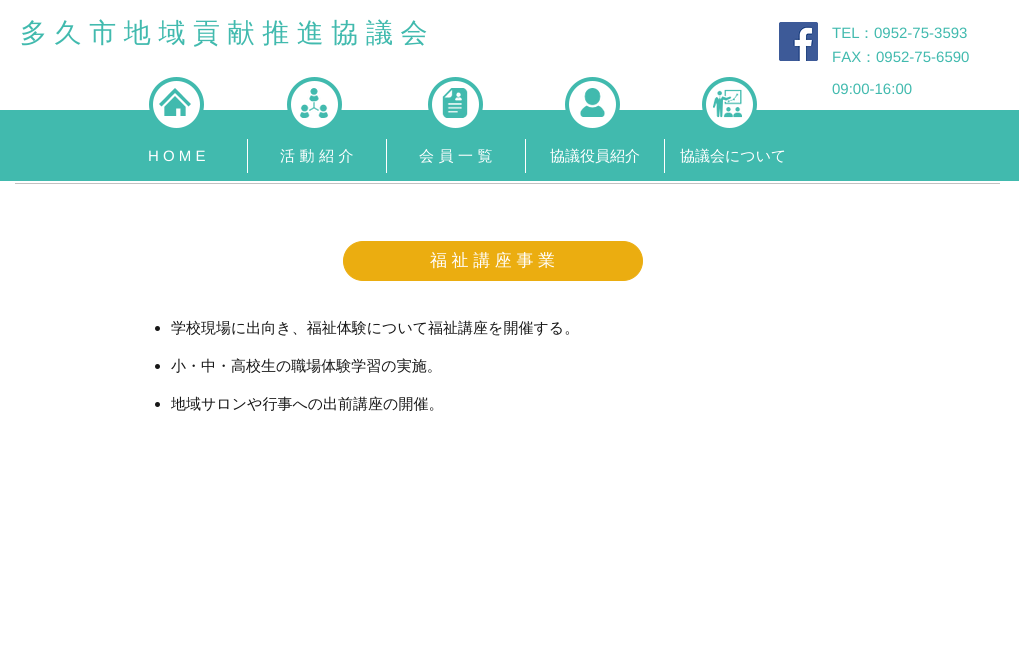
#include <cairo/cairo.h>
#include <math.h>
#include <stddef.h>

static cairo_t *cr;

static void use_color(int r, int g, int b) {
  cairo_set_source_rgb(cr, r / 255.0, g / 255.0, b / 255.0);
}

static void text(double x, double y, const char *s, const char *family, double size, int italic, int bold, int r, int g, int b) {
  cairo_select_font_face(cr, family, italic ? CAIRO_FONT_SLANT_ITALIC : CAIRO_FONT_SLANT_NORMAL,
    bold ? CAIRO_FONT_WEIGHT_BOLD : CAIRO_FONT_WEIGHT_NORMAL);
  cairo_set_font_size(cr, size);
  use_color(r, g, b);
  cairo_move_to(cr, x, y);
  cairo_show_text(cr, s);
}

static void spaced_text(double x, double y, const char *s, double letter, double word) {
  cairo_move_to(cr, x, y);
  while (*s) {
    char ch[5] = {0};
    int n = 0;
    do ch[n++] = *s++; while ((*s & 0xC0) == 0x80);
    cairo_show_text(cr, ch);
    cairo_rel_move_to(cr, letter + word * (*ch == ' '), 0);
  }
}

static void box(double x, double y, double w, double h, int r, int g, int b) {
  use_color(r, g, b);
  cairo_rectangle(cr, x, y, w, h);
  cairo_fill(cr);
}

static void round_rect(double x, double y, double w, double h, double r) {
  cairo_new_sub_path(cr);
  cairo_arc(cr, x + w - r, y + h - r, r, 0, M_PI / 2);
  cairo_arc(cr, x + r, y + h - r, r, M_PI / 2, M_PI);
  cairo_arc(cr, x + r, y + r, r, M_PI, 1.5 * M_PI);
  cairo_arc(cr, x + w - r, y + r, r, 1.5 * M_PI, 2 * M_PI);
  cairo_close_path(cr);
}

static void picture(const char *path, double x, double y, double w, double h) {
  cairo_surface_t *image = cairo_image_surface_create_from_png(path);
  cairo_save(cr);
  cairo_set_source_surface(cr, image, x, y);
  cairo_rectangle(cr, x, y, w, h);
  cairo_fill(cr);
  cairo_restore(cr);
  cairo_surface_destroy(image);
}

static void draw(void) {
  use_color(255, 255, 255);
  cairo_paint(cr);
  picture("img_01.png", 779, 22, 39, 39);
  box(0, 110, 1019, 71, 65, 186, 174);
  use_color(255, 255, 255);
  cairo_arc(cr, 176.5, 104.5, 25.5, 0, 2 * M_PI);
  cairo_fill_preserve(cr);
  use_color(65, 186, 174);
  cairo_set_line_width(cr, 4);
  cairo_stroke(cr);
  picture("img_02.png", 159, 88, 32, 28);
  use_color(255, 255, 255);
  cairo_arc(cr, 314.5, 104.5, 25.5, 0, 2 * M_PI);
  cairo_fill_preserve(cr);
  use_color(65, 186, 174);
  cairo_stroke(cr);
  picture("img_03.png", 299, 88, 30, 30);
  use_color(255, 255, 255);
  cairo_arc(cr, 455.5, 104.5, 25.5, 0, 2 * M_PI);
  cairo_fill_preserve(cr);
  use_color(65, 186, 174);
  cairo_stroke(cr);
  picture("img_04.png", 442, 88, 26, 30);
  use_color(255, 255, 255);
  cairo_arc(cr, 592.5, 104.5, 25.5, 0, 2 * M_PI);
  cairo_fill_preserve(cr);
  use_color(65, 186, 174);
  cairo_stroke(cr);
  picture("img_05.png", 580, 88, 25, 29);
  use_color(255, 255, 255);
  cairo_arc(cr, 729.5, 104.5, 25.5, 0, 2 * M_PI);
  cairo_fill_preserve(cr);
  use_color(65, 186, 174);
  cairo_stroke(cr);
  picture("img_06.png", 713, 89, 29, 29);
  box(247, 139, 1, 34, 255, 255, 255);
  box(386, 139, 1, 34, 255, 255, 255);
  box(525, 139, 1, 34, 255, 255, 255);
  box(664, 139, 1, 34, 255, 255, 255);
  box(15, 183, 985, 1, 193, 193, 193);
  use_color(235, 173, 16);
  round_rect(343.5, 241.5, 299, 39, 19.5);
  cairo_fill_preserve(cr);
  cairo_set_line_width(cr, 1);
  cairo_stroke(cr);
  use_color(23, 23, 23);
  cairo_arc(cr, 157.5, 328.5, 2.5, 0, 2 * M_PI);
  cairo_fill(cr);
  cairo_arc(cr, 157.5, 366.5, 2.5, 0, 2 * M_PI);
  cairo_fill(cr);
  cairo_arc(cr, 157.5, 404.5, 2.5, 0, 2 * M_PI);
  cairo_fill(cr);
  cairo_select_font_face(cr, "WenQuanYi Zen Hei Medium", CAIRO_FONT_SLANT_NORMAL, CAIRO_FONT_WEIGHT_NORMAL);
  cairo_set_font_size(cr, 27);
  use_color(65, 186, 174);
  spaced_text(20, 42, "多 久 市 地 域 貢 献 推 進 協 議 会", 0, -0.5);
  text(832, 38, "TEL", "Liberation Sans", 15, 0, 0, 65, 186, 174);
  text(859, 38, "：", "WenQuanYi Zen Hei Medium", 15, 0, 0, 65, 186, 174);
  text(874, 38, "0952-75-3593", "Liberation Sans", 15, 0, 0, 65, 186, 174);
  text(832, 62, "FAX", "Liberation Sans", 15, 0, 0, 65, 186, 174);
  text(861, 62, "：", "WenQuanYi Zen Hei Medium", 15, 0, 0, 65, 186, 174);
  text(876, 62, "0952-75-6590", "Liberation Sans", 15, 0, 0, 65, 186, 174);
  text(832, 94, "09:00-16:00", "Liberation Sans", 15, 0, 0, 65, 186, 174);
  text(148, 161, "H O M E", "Liberation Sans", 15, 0, 0, 255, 255, 255);
  text(280, 161, "活 動 紹 介", "WenQuanYi Zen Hei Medium", 15, 0, 0, 255, 255, 255);
  text(419, 161, "会 員 一 覧", "WenQuanYi Zen Hei Medium", 15, 0, 0, 255, 255, 255);
  text(550, 161, "協議役員紹介", "WenQuanYi Zen Hei Medium", 15, 0, 0, 255, 255, 255);
  text(680, 161, "協議会について", "WenQuanYi Zen Hei Medium", 15, 0, 0, 255, 255, 255);
  cairo_set_font_size(cr, 17);
  spaced_text(430, 266, "福 祉 講 座 事 業", 0, -0.5);
  text(171, 333, "学校現場に出向き、福祉体験について福祉講座を開催する。", "WenQuanYi Zen Hei Medium", 15, 0, 0, 23, 23, 23);
  text(171, 371, "小・中・高校生の職場体験学習の実施。", "WenQuanYi Zen Hei Medium", 15, 0, 0, 23, 23, 23);
  text(171, 409, "地域サロンや行事への出前講座の開催。", "WenQuanYi Zen Hei Medium", 15, 0, 0, 23, 23, 23);
}

int main(void) {
  cairo_surface_t *surface = cairo_image_surface_create(CAIRO_FORMAT_RGB24, 1019, 654);
  cr = cairo_create(surface);
  cairo_font_options_t *options = cairo_font_options_create();
  cairo_font_options_set_hint_metrics(options, CAIRO_HINT_METRICS_OFF);
  cairo_font_options_set_hint_style(options, CAIRO_HINT_STYLE_NONE);
  cairo_set_font_options(cr, options);
  cairo_set_miter_limit(cr, 4);
  draw();
  cairo_surface_write_to_png(surface, "out.png");
  cairo_font_options_destroy(options);
  cairo_destroy(cr);
  cairo_surface_destroy(surface);
  return 0;
}
